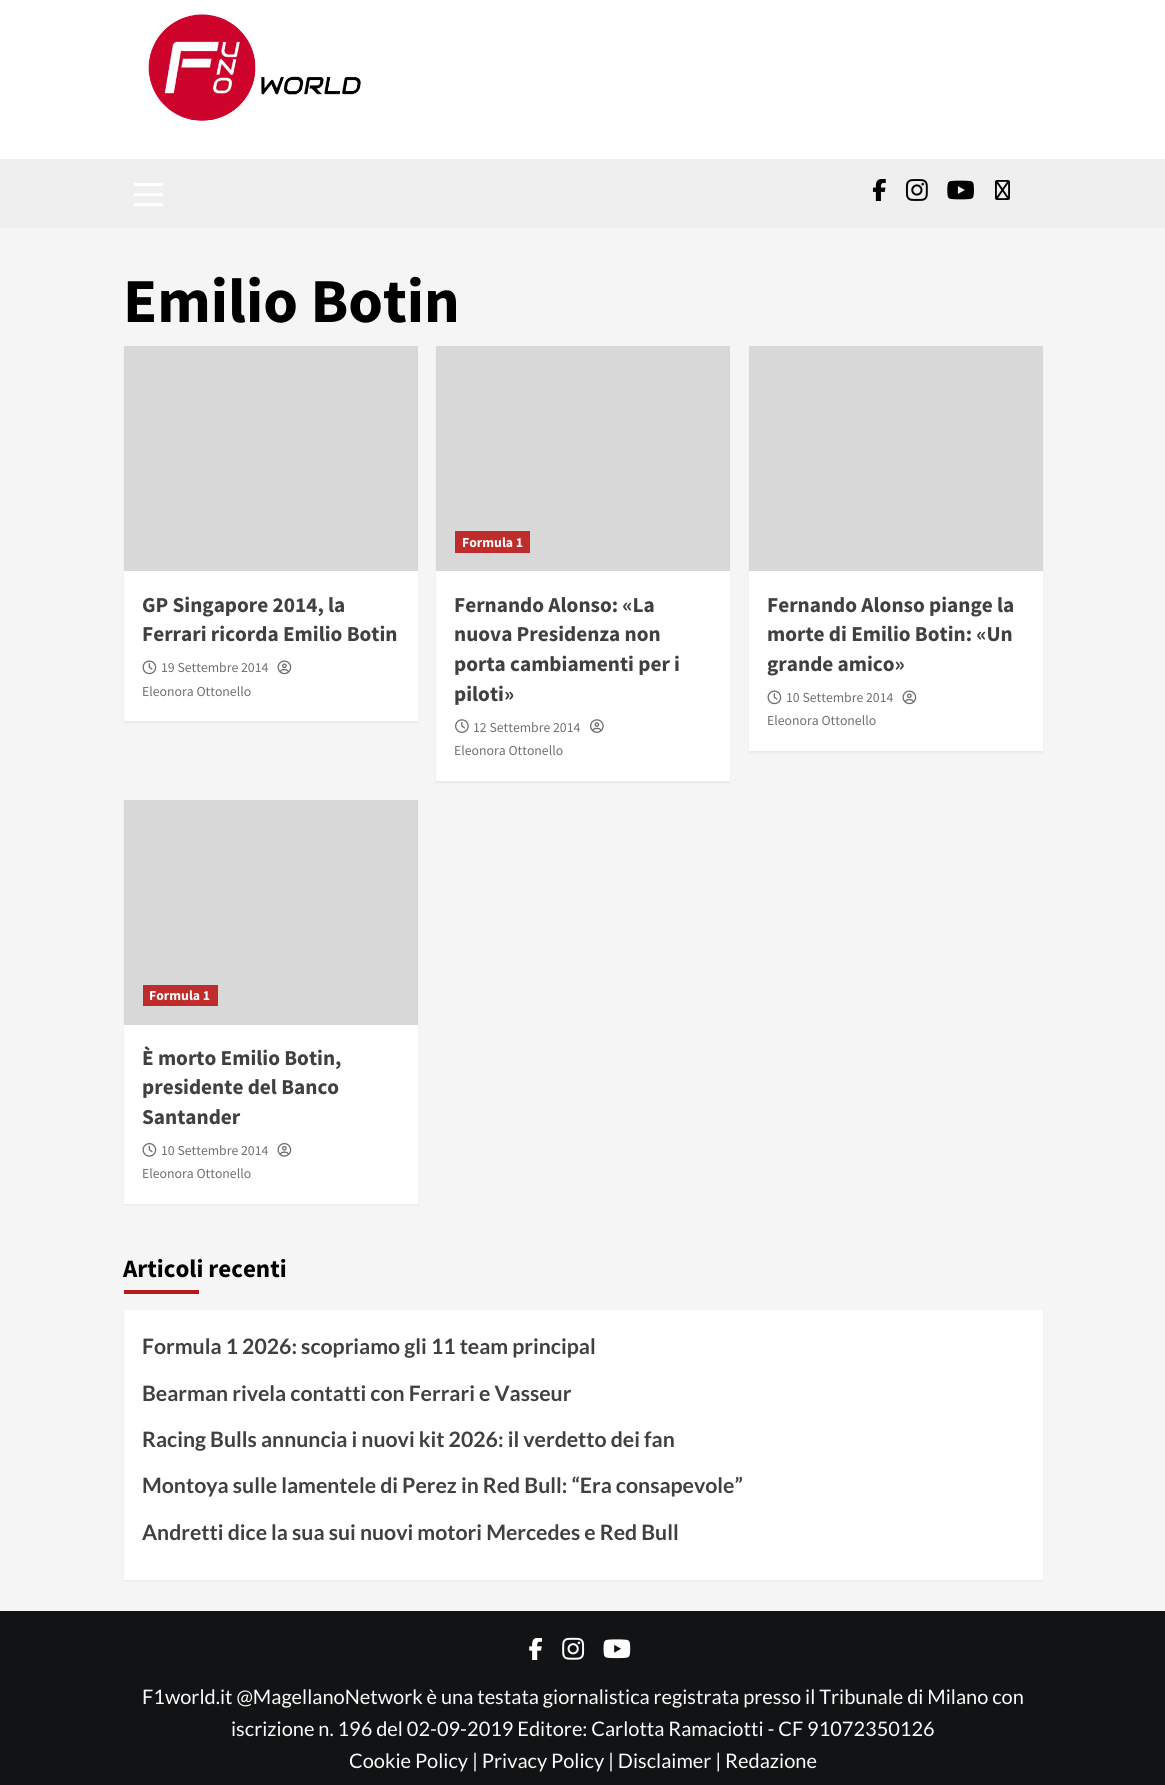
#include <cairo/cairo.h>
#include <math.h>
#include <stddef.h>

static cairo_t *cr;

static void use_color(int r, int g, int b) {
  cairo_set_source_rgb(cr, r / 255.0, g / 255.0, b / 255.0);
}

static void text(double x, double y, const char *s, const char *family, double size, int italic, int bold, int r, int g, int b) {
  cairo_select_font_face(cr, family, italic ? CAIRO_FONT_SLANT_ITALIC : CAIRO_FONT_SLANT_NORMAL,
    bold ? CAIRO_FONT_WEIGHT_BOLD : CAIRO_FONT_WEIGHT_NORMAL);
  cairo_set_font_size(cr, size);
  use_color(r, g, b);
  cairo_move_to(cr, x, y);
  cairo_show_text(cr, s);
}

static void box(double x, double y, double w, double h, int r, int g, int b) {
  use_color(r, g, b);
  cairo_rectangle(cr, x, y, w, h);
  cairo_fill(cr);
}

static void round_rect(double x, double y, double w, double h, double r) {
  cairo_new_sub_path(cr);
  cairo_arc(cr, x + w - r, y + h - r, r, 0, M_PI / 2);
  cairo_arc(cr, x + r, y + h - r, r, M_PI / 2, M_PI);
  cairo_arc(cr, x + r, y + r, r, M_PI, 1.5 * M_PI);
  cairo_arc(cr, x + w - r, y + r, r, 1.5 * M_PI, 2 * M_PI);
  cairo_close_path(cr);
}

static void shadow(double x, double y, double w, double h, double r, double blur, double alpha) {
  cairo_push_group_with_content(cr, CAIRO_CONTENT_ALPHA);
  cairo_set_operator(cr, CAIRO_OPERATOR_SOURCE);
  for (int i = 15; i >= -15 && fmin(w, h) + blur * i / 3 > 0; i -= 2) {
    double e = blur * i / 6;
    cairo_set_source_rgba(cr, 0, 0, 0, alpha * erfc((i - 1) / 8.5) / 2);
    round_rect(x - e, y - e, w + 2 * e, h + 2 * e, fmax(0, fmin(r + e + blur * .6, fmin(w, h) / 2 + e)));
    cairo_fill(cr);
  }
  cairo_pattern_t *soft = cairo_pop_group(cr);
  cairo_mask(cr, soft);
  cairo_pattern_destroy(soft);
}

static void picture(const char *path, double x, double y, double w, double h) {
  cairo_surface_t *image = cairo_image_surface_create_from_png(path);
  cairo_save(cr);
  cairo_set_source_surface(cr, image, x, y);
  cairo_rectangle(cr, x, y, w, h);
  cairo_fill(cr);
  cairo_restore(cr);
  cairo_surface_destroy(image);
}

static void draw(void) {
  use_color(245, 245, 245);
  cairo_paint(cr);
  box(0, 0, 1165, 159, 255, 255, 255);
  picture("img_01.png", 148, 14, 213, 107);
  box(0, 159, 1165, 69, 239, 239, 239);
  box(134, 193, 29, 3, 255, 255, 255);
  box(134, 183, 29, 3, 255, 255, 255);
  box(134, 203, 29, 3, 255, 255, 255);
  picture("img_02.png", 872, 179, 14, 22);
  picture("img_03.png", 905, 179, 23, 22);
  picture("img_04.png", 947, 180, 27, 20);
  picture("img_05.png", 995, 180, 15, 20);
  use_color(0, 0, 0);
  shadow(124, 348, 294, 375, 0, 1, 0.05);
  box(124, 571, 294, 150, 255, 255, 255);
  box(124, 346, 294, 225, 216, 216, 216);
  picture("img_06.png", 142, 660, 15, 15);
  picture("img_07.png", 277, 660, 15, 15);
  use_color(0, 0, 0);
  shadow(436, 348, 294, 435, 0, 1, 0.05);
  box(436, 571, 294, 210, 255, 255, 255);
  box(436, 346, 294, 225, 216, 216, 216);
  box(455, 531, 75, 22, 190, 44, 44);
  picture("img_08.png", 455, 719, 14, 14);
  picture("img_09.png", 590, 719, 14, 14);
  use_color(0, 0, 0);
  shadow(749, 348, 294, 405, 0, 1, 0.05);
  box(749, 571, 294, 180, 255, 255, 255);
  box(749, 346, 294, 225, 216, 216, 216);
  picture("img_06.png", 767, 690, 15, 15);
  picture("img_07.png", 902, 690, 15, 15);
  use_color(0, 0, 0);
  shadow(124, 801, 294, 404, 0, 1, 0.05);
  box(124, 1025, 294, 179, 255, 255, 255);
  box(124, 800, 294, 225, 216, 216, 216);
  box(143, 985, 75, 21, 190, 44, 44);
  picture("img_10.png", 142, 1143, 15, 14);
  picture("img_11.png", 277, 1143, 15, 14);
  box(124, 1290, 75, 4, 187, 25, 25);
  use_color(0, 0, 0);
  shadow(124, 1311, 919, 270, 0, 1, 0.05);
  box(124, 1310, 919, 270, 255, 255, 255);
  box(0, 1611, 1165, 174, 18, 19, 20);
  picture("img_12.png", 529, 1638, 14, 22);
  picture("img_13.png", 562, 1637, 23, 23);
  picture("img_14.png", 603, 1639, 28, 20);
  text(123, 322, "Emilio Botin", "Source Sans Pro", 62.5, 0, 1, 0, 0, 0);
  text(142, 612, "GP Singapore 2014, la", "Source Sans Pro", 21.25, 0, 1, 64, 64, 64);
  text(142, 641, "Ferrari ricorda Emilio Botin", "Source Sans Pro", 21.25, 0, 1, 64, 64, 64);
  text(161, 672, "19 Settembre 2014", "Source Sans Pro", 13.75, 0, 0, 112, 112, 112);
  text(142, 696, "Eleonora Ottonello", "Source Sans Pro", 13.75, 0, 0, 112, 112, 112);
  text(462, 547, "Formula 1", "Source Sans Pro", 13.75, 0, 1, 251, 251, 251);
  text(454, 612, "Fernando Alonso: «La", "Source Sans Pro", 21.25, 0, 1, 64, 64, 64);
  text(454, 641, "nuova Presidenza non", "Source Sans Pro", 21.25, 0, 1, 64, 64, 64);
  text(454, 671, "porta cambiamenti per i", "Source Sans Pro", 21.25, 0, 1, 64, 64, 64);
  text(454, 701, "piloti»", "Source Sans Pro", 21.25, 0, 1, 64, 64, 64);
  text(473, 732, "12 Settembre 2014", "Source Sans Pro", 13.75, 0, 0, 112, 112, 112);
  text(454, 755, "Eleonora Ottonello", "Source Sans Pro", 13.75, 0, 0, 112, 112, 112);
  text(767, 612, "Fernando Alonso piange la", "Source Sans Pro", 21.25, 0, 1, 64, 64, 64);
  text(767, 641, "morte di Emilio Botin: «Un", "Source Sans Pro", 21.25, 0, 1, 64, 64, 64);
  text(767, 671, "grande amico»", "Source Sans Pro", 21.25, 0, 1, 64, 64, 64);
  text(786, 702, "10 Settembre 2014", "Source Sans Pro", 13.75, 0, 0, 112, 112, 112);
  text(767, 725, "Eleonora Ottonello", "Source Sans Pro", 13.75, 0, 0, 112, 112, 112);
  text(149, 1000, "Formula 1", "Source Sans Pro", 13.75, 0, 1, 251, 251, 251);
  text(142, 1065, "È morto Emilio Botin,", "Source Sans Pro", 21.25, 0, 1, 64, 64, 64);
  text(142, 1094, "presidente del Banco", "Source Sans Pro", 21.25, 0, 1, 64, 64, 64);
  text(142, 1124, "Santander", "Source Sans Pro", 21.25, 0, 1, 64, 64, 64);
  text(161, 1155, "10 Settembre 2014", "Source Sans Pro", 13.75, 0, 0, 112, 112, 112);
  text(142, 1178, "Eleonora Ottonello", "Source Sans Pro", 13.75, 0, 0, 112, 112, 112);
  text(123, 1277, "Articoli recenti", "Source Sans Pro", 25, 0, 1, 0, 0, 0);
  text(142, 1354, "Formula 1 2026: scopriamo gli 11 team principal", "Lato", 21.25, 0, 1, 64, 64, 64);
  text(142, 1401, "Bearman rivela contatti con Ferrari e Vasseur", "Lato", 21.25, 0, 1, 64, 64, 64);
  text(142, 1447, "Racing Bulls annuncia i nuovi kit 2026: il verdetto dei fan", "Lato", 21.25, 0, 1, 64, 64, 64);
  text(142, 1493, "Montoya sulle lamentele di Perez in Red Bull: “Era consapevole”", "Lato", 21.25, 0, 1, 64, 64, 64);
  text(142, 1540, "Andretti dice la sua sui nuovi motori Mercedes e Red Bull", "Lato", 21.25, 0, 1, 64, 64, 64);
  text(142, 1704, "F1world.it @MagellanoNetwork è una testata giornalistica registrata presso il Tribunale di Milano con", "Lato", 20, 0, 0, 251, 251, 251);
  text(231, 1736, "iscrizione n. 196 del 02-09-2019 Editore: Carlotta Ramaciotti - CF 91072350126", "Lato", 20, 0, 0, 251, 251, 251);
  text(349, 1768, "Cookie Policy | Privacy Policy | Disclaimer | Redazione", "Lato", 20, 0, 0, 251, 251, 251);
}

int main(void) {
  cairo_surface_t *surface = cairo_image_surface_create(CAIRO_FORMAT_RGB24, 1165, 1785);
  cr = cairo_create(surface);
  cairo_font_options_t *options = cairo_font_options_create();
  cairo_font_options_set_hint_metrics(options, CAIRO_HINT_METRICS_OFF);
  cairo_font_options_set_hint_style(options, CAIRO_HINT_STYLE_NONE);
  cairo_set_font_options(cr, options);
  cairo_set_miter_limit(cr, 4);
  draw();
  cairo_surface_write_to_png(surface, "out.png");
  cairo_font_options_destroy(options);
  cairo_destroy(cr);
  cairo_surface_destroy(surface);
  return 0;
}
